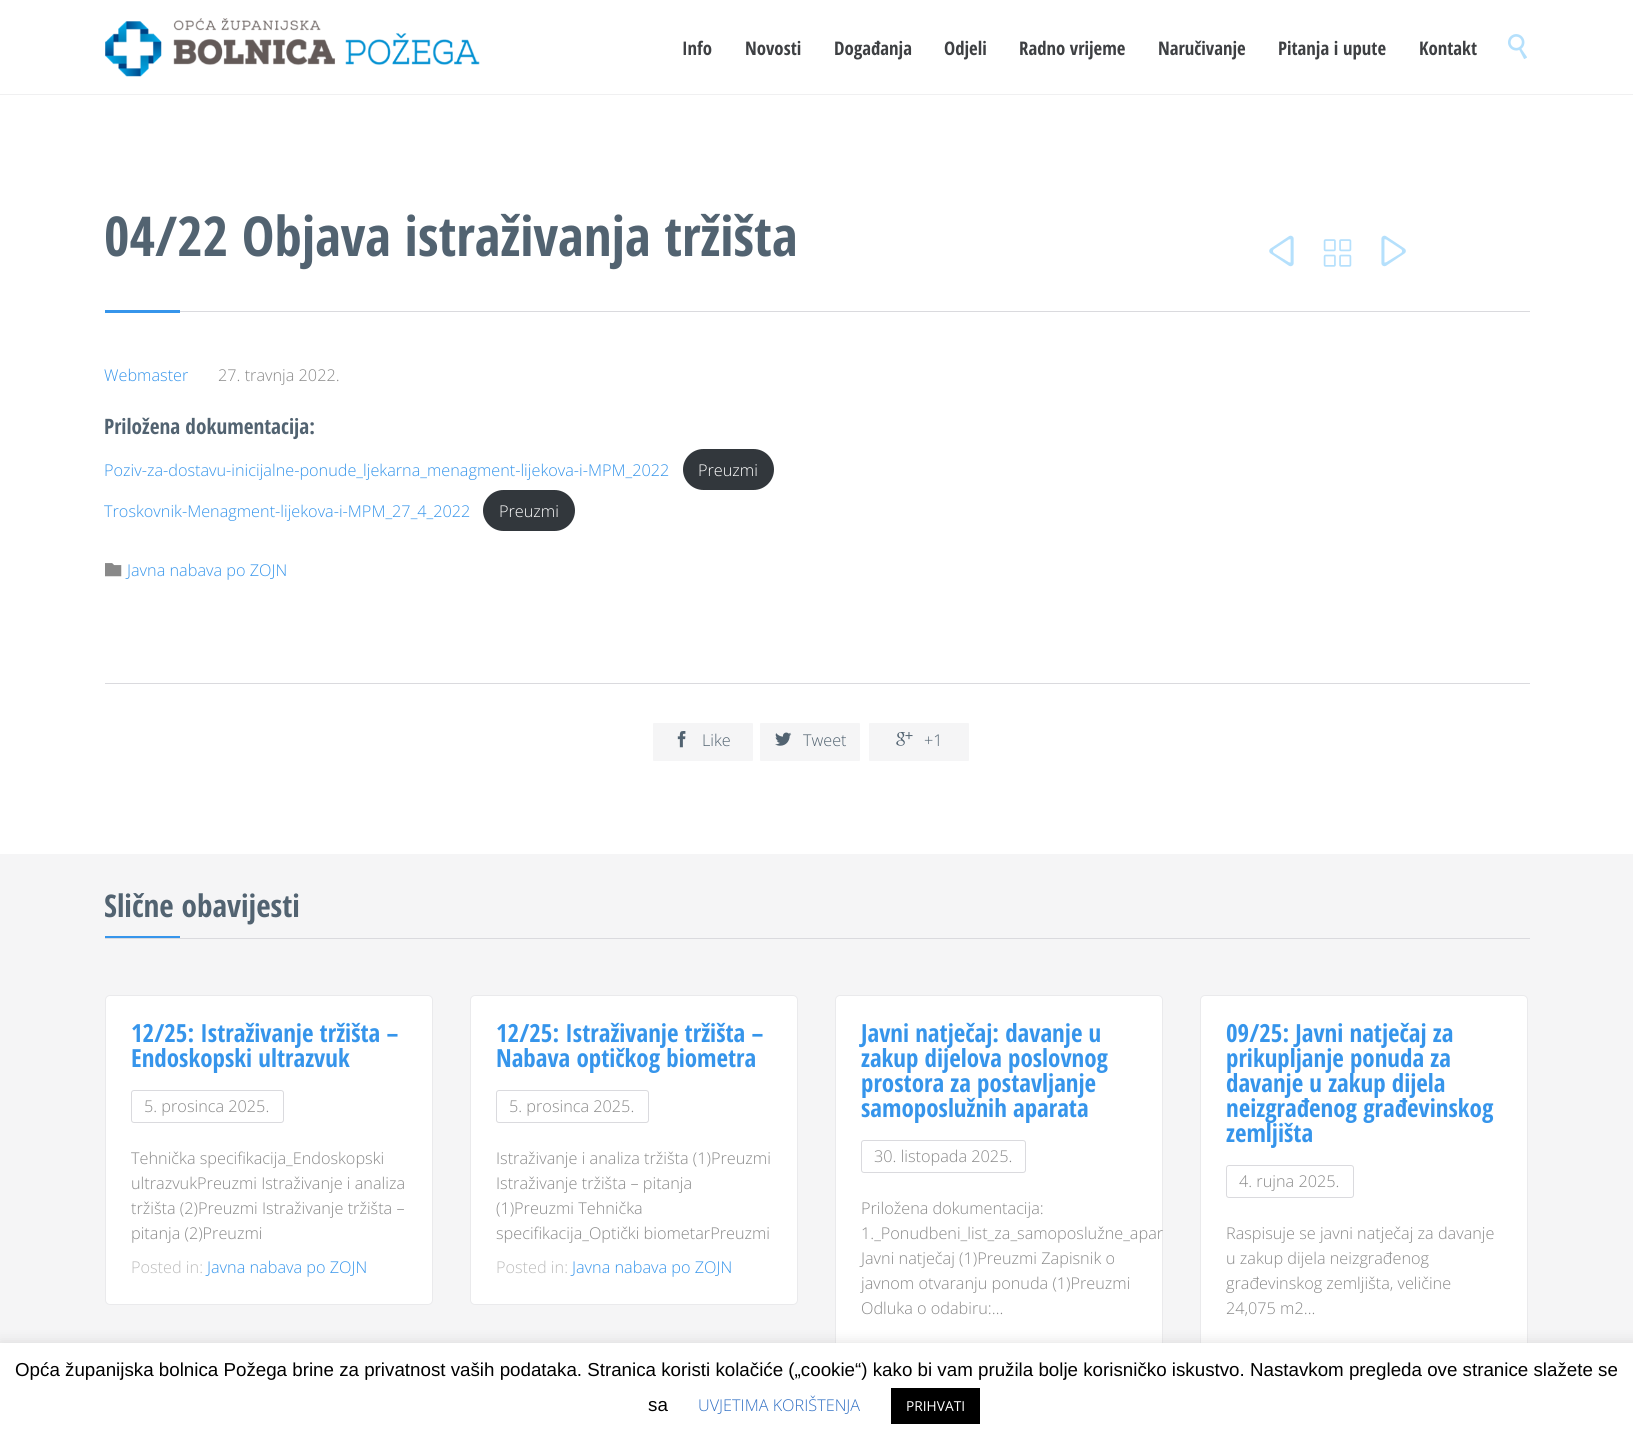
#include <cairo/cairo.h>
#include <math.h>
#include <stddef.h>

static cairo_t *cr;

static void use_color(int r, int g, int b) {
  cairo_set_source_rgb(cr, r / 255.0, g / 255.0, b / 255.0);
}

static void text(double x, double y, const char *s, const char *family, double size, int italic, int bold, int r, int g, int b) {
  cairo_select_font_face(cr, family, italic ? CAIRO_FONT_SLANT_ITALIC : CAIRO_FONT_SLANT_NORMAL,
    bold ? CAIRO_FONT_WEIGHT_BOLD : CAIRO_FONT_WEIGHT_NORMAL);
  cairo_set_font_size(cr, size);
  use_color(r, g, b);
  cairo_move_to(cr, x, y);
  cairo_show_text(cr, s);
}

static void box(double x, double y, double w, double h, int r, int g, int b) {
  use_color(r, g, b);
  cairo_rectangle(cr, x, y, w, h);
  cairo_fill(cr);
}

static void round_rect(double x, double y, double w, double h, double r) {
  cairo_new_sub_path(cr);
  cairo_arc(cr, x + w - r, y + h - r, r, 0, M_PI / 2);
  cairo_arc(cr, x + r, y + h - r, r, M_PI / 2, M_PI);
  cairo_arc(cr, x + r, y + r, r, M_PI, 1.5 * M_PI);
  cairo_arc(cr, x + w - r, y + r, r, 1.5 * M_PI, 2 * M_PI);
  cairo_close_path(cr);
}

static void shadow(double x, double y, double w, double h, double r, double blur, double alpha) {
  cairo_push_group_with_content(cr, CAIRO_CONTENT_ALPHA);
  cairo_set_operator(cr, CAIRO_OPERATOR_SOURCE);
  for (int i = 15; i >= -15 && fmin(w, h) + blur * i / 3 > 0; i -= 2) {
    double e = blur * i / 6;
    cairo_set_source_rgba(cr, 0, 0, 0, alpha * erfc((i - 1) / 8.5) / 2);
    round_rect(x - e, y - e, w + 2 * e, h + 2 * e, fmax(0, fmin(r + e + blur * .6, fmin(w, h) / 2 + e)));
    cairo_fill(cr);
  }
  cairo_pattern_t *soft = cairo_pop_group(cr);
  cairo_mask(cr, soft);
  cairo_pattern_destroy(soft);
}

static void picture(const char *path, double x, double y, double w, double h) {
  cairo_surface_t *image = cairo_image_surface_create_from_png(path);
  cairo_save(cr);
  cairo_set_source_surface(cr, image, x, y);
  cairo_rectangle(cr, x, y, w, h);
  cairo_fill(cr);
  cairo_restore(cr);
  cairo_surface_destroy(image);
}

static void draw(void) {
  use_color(255, 255, 255);
  cairo_paint(cr);
  box(0, 94, 1633, 1, 240, 240, 241);
  picture("img_01.png", 105, 18, 375, 59);
  picture("img_02.png", 1508, 34, 19, 25);
  box(180, 311, 1350, 1, 218, 218, 222);
  picture("img_03.png", 1269, 235, 25, 32);
  picture("img_04.png", 1323, 239, 29, 28);
  picture("img_05.png", 1381, 235, 25, 32);
  box(105, 310, 75, 3, 54, 149, 235);
  use_color(50, 55, 60);
  round_rect(683, 449, 91, 41, 20.5);
  cairo_fill(cr);
  round_rect(483, 490, 92, 41, 20.5);
  cairo_fill(cr);
  picture("img_06.png", 105, 563, 17, 14);
  box(105, 683, 1425, 1, 218, 218, 222);
  use_color(245, 245, 246);
  round_rect(653, 723, 100, 38, 1);
  cairo_fill(cr);
  picture("img_07.png", 677, 731, 9, 17);
  round_rect(760, 723, 100, 38, 1);
  cairo_fill(cr);
  picture("img_08.png", 775, 732, 17, 14);
  round_rect(869, 723, 100, 38, 1);
  cairo_fill(cr);
  picture("img_09.png", 896, 732, 17, 14);
  box(0, 854, 1633, 489, 245, 245, 246);
  box(105, 938, 1425, 1, 218, 218, 222);
  box(105, 936, 75, 2, 54, 149, 235);
  use_color(255, 255, 255);
  round_rect(105.5, 995.5, 327, 309, 4.5);
  cairo_fill_preserve(cr);
  use_color(234, 234, 236);
  cairo_set_line_width(cr, 1);
  cairo_stroke(cr);
  round_rect(131.5, 1090.5, 152, 32, 2.5);
  use_color(218, 218, 222);
  cairo_stroke(cr);
  use_color(255, 255, 255);
  round_rect(470.5, 995.5, 327, 309, 4.5);
  cairo_fill_preserve(cr);
  use_color(234, 234, 236);
  cairo_stroke(cr);
  round_rect(496.5, 1090.5, 152, 32, 2.5);
  use_color(218, 218, 222);
  cairo_stroke(cr);
  use_color(255, 255, 255);
  round_rect(835.5, 995.5, 327, 409, 4.5);
  cairo_fill_preserve(cr);
  use_color(234, 234, 236);
  cairo_stroke(cr);
  round_rect(861.5, 1140.5, 164, 32, 2.5);
  use_color(218, 218, 222);
  cairo_stroke(cr);
  use_color(255, 255, 255);
  round_rect(1200.5, 995.5, 327, 384, 4.5);
  cairo_fill_preserve(cr);
  use_color(234, 234, 236);
  cairo_stroke(cr);
  round_rect(1226.5, 1165.5, 127, 32, 2.5);
  use_color(218, 218, 222);
  cairo_stroke(cr);
  use_color(172, 171, 171);
  shadow(0, 1341, 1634, 103, 0, 6, 0.3);
  box(0, 1343, 1633, 102, 255, 255, 255);
  box(891, 1388, 89, 36, 0, 0, 0);
  text(682, 55, "Info", "Open Sans Condensed", 18.75, 0, 1, 62, 64, 67);
  text(745, 55, "Novosti", "Open Sans Condensed", 18.75, 0, 1, 62, 64, 67);
  text(834, 55, "Događanja", "Open Sans Condensed", 18.75, 0, 1, 62, 64, 67);
  text(944, 55, "Odjeli", "Open Sans Condensed", 18.75, 0, 1, 62, 64, 67);
  text(1019, 55, "Radno vrijeme", "Open Sans Condensed", 18.75, 0, 1, 62, 64, 67);
  text(1158, 55, "Naručivanje", "Open Sans Condensed", 18.75, 0, 1, 62, 64, 67);
  text(1278, 55, "Pitanja i upute", "Open Sans Condensed", 18.75, 0, 1, 62, 64, 67);
  text(1419, 55, "Kontakt", "Open Sans Condensed", 18.75, 0, 1, 62, 64, 67);
  text(104, 256, "04/22 Objava istraživanja tržišta", "Open Sans Condensed", 55, 0, 1, 82, 99, 113);
  text(104, 381, "Webmaster", "Open Sans Light", 16.25, 0, 0, 54, 149, 235);
  text(218, 381, "27. travnja 2022.", "Open Sans Light", 16.25, 0, 0, 137, 137, 137);
  text(104, 434, "Priložena dokumentacija:", "Open Sans Condensed", 21.25, 0, 1, 82, 99, 113);
  text(104, 476, "Poziv-za-dostavu-inicijalne-ponude_ljekarna_menagment-lijekova-i-MPM_2022", "Open Sans Light", 16.25, 0, 0, 54, 149, 235);
  text(698, 476, "Preuzmi", "Open Sans Light", 16.25, 0, 0, 255, 255, 255);
  text(104, 517, "Troskovnik-Menagment-lijekova-i-MPM_27_4_2022", "Open Sans Light", 16.25, 0, 0, 54, 149, 235);
  text(499, 517, "Preuzmi", "Open Sans Light", 16.25, 0, 0, 255, 255, 255);
  text(127, 576, "Javna nabava po ZOJN", "Open Sans Light", 16.25, 0, 0, 54, 149, 235);
  text(702, 746, "Like", "Open Sans Light", 16.25, 0, 0, 82, 99, 113);
  text(803, 746, "Tweet", "Open Sans Light", 16.25, 0, 0, 82, 99, 113);
  text(924, 746, "+1", "Open Sans Light", 16.25, 0, 0, 82, 99, 113);
  text(104, 917, "Slične obavijesti", "Open Sans Condensed", 31.25, 0, 1, 82, 99, 113);
  text(131, 1042, "12/25: Istraživanje tržišta –", "Open Sans Condensed", 25, 0, 1, 54, 149, 235);
  text(131, 1067, "Endoskopski ultrazvuk", "Open Sans Condensed", 25, 0, 1, 54, 149, 235);
  text(144, 1112, "5. prosinca 2025.", "Open Sans Light", 16.25, 0, 0, 137, 137, 137);
  text(131, 1164, "Tehnička specifikacija_Endoskopski", "Open Sans Light", 16.25, 0, 0, 137, 137, 137);
  text(131, 1189, "ultrazvukPreuzmi Istraživanje i analiza", "Open Sans Light", 16.25, 0, 0, 137, 137, 137);
  text(131, 1214, "tržišta (2)Preuzmi Istraživanje tržišta –", "Open Sans Light", 16.25, 0, 0, 137, 137, 137);
  text(131, 1239, "pitanja (2)Preuzmi", "Open Sans Light", 16.25, 0, 0, 137, 137, 137);
  text(131, 1273, "Posted in:", "Open Sans Light", 16.25, 0, 0, 188, 188, 188);
  text(207, 1273, "Javna nabava po ZOJN", "Open Sans Light", 16.25, 0, 0, 54, 149, 235);
  text(496, 1042, "12/25: Istraživanje tržišta –", "Open Sans Condensed", 25, 0, 1, 54, 149, 235);
  text(496, 1067, "Nabava optičkog biometra", "Open Sans Condensed", 25, 0, 1, 54, 149, 235);
  text(509, 1112, "5. prosinca 2025.", "Open Sans Light", 16.25, 0, 0, 137, 137, 137);
  text(496, 1164, "Istraživanje i analiza tržišta (1)Preuzmi", "Open Sans Light", 16.25, 0, 0, 137, 137, 137);
  text(496, 1189, "Istraživanje tržišta – pitanja", "Open Sans Light", 16.25, 0, 0, 137, 137, 137);
  text(496, 1214, "(1)Preuzmi Tehnička", "Open Sans Light", 16.25, 0, 0, 137, 137, 137);
  text(496, 1239, "specifikacija_Optički biometarPreuzmi", "Open Sans Light", 16.25, 0, 0, 137, 137, 137);
  text(496, 1273, "Posted in:", "Open Sans Light", 16.25, 0, 0, 188, 188, 188);
  text(572, 1273, "Javna nabava po ZOJN", "Open Sans Light", 16.25, 0, 0, 54, 149, 235);
  text(861, 1042, "Javni natječaj: davanje u", "Open Sans Condensed", 25, 0, 1, 54, 149, 235);
  text(861, 1067, "zakup dijelova poslovnog", "Open Sans Condensed", 25, 0, 1, 54, 149, 235);
  text(861, 1092, "prostora za postavljanje", "Open Sans Condensed", 25, 0, 1, 54, 149, 235);
  text(861, 1117, "samoposlužnih aparata", "Open Sans Condensed", 25, 0, 1, 54, 149, 235);
  text(874, 1162, "30. listopada 2025.", "Open Sans Light", 16.25, 0, 0, 137, 137, 137);
  text(861, 1214, "Priložena dokumentacija:", "Open Sans Light", 16.25, 0, 0, 137, 137, 137);
  text(861, 1239, "1._Ponudbeni_list_za_samoposlužne_apar", "Open Sans Light", 16.25, 0, 0, 137, 137, 137);
  text(861, 1264, "Javni natječaj (1)Preuzmi Zapisnik o", "Open Sans Light", 16.25, 0, 0, 137, 137, 137);
  text(861, 1289, "javnom otvaranju ponuda (1)Preuzmi", "Open Sans Light", 16.25, 0, 0, 137, 137, 137);
  text(861, 1314, "Odluka o odabiru:…", "Open Sans Light", 16.25, 0, 0, 137, 137, 137);
  text(1226, 1042, "09/25: Javni natječaj za", "Open Sans Condensed", 25, 0, 1, 54, 149, 235);
  text(1226, 1067, "prikupljanje ponuda za", "Open Sans Condensed", 25, 0, 1, 54, 149, 235);
  text(1226, 1092, "davanje u zakup dijela", "Open Sans Condensed", 25, 0, 1, 54, 149, 235);
  text(1226, 1117, "neizgrađenog građevinskog", "Open Sans Condensed", 25, 0, 1, 54, 149, 235);
  text(1226, 1142, "zemljišta", "Open Sans Condensed", 25, 0, 1, 54, 149, 235);
  text(1239, 1187, "4. rujna 2025.", "Open Sans Light", 16.25, 0, 0, 137, 137, 137);
  text(1226, 1239, "Raspisuje se javni natječaj za davanje", "Open Sans Light", 16.25, 0, 0, 137, 137, 137);
  text(1226, 1264, "u zakup dijela neizgrađenog", "Open Sans Light", 16.25, 0, 0, 137, 137, 137);
  text(1226, 1289, "građevinskog zemljišta, veličine", "Open Sans Light", 16.25, 0, 0, 137, 137, 137);
  text(1226, 1314, "24,075 m2…", "Open Sans Light", 16.25, 0, 0, 137, 137, 137);
  text(15, 1376, "Opća županijska bolnica Požega brine za privatnost vaših podataka. Stranica koristi kolačiće („cookie“) kako bi vam pružila bolje korisničko iskustvo. Nastavkom pregleda ove stranice slažete se", "Liberation Sans", 18.75, 0, 0, 0, 0, 0);
  text(648, 1411, "sa", "Liberation Sans", 18.75, 0, 0, 0, 0, 0);
  text(698, 1411, "UVJETIMA KORIŠTENJA", "Open Sans Light", 16.25, 0, 0, 49, 112, 196);
  text(906, 1411, "PRIHVATI", "Open Sans", 13.75, 0, 0, 255, 255, 255);
}

int main(void) {
  cairo_surface_t *surface = cairo_image_surface_create(CAIRO_FORMAT_RGB24, 1633, 1445);
  cr = cairo_create(surface);
  cairo_font_options_t *options = cairo_font_options_create();
  cairo_font_options_set_hint_metrics(options, CAIRO_HINT_METRICS_OFF);
  cairo_font_options_set_hint_style(options, CAIRO_HINT_STYLE_NONE);
  cairo_set_font_options(cr, options);
  cairo_set_miter_limit(cr, 4);
  draw();
  cairo_surface_write_to_png(surface, "out.png");
  cairo_font_options_destroy(options);
  cairo_destroy(cr);
  cairo_surface_destroy(surface);
  return 0;
}
